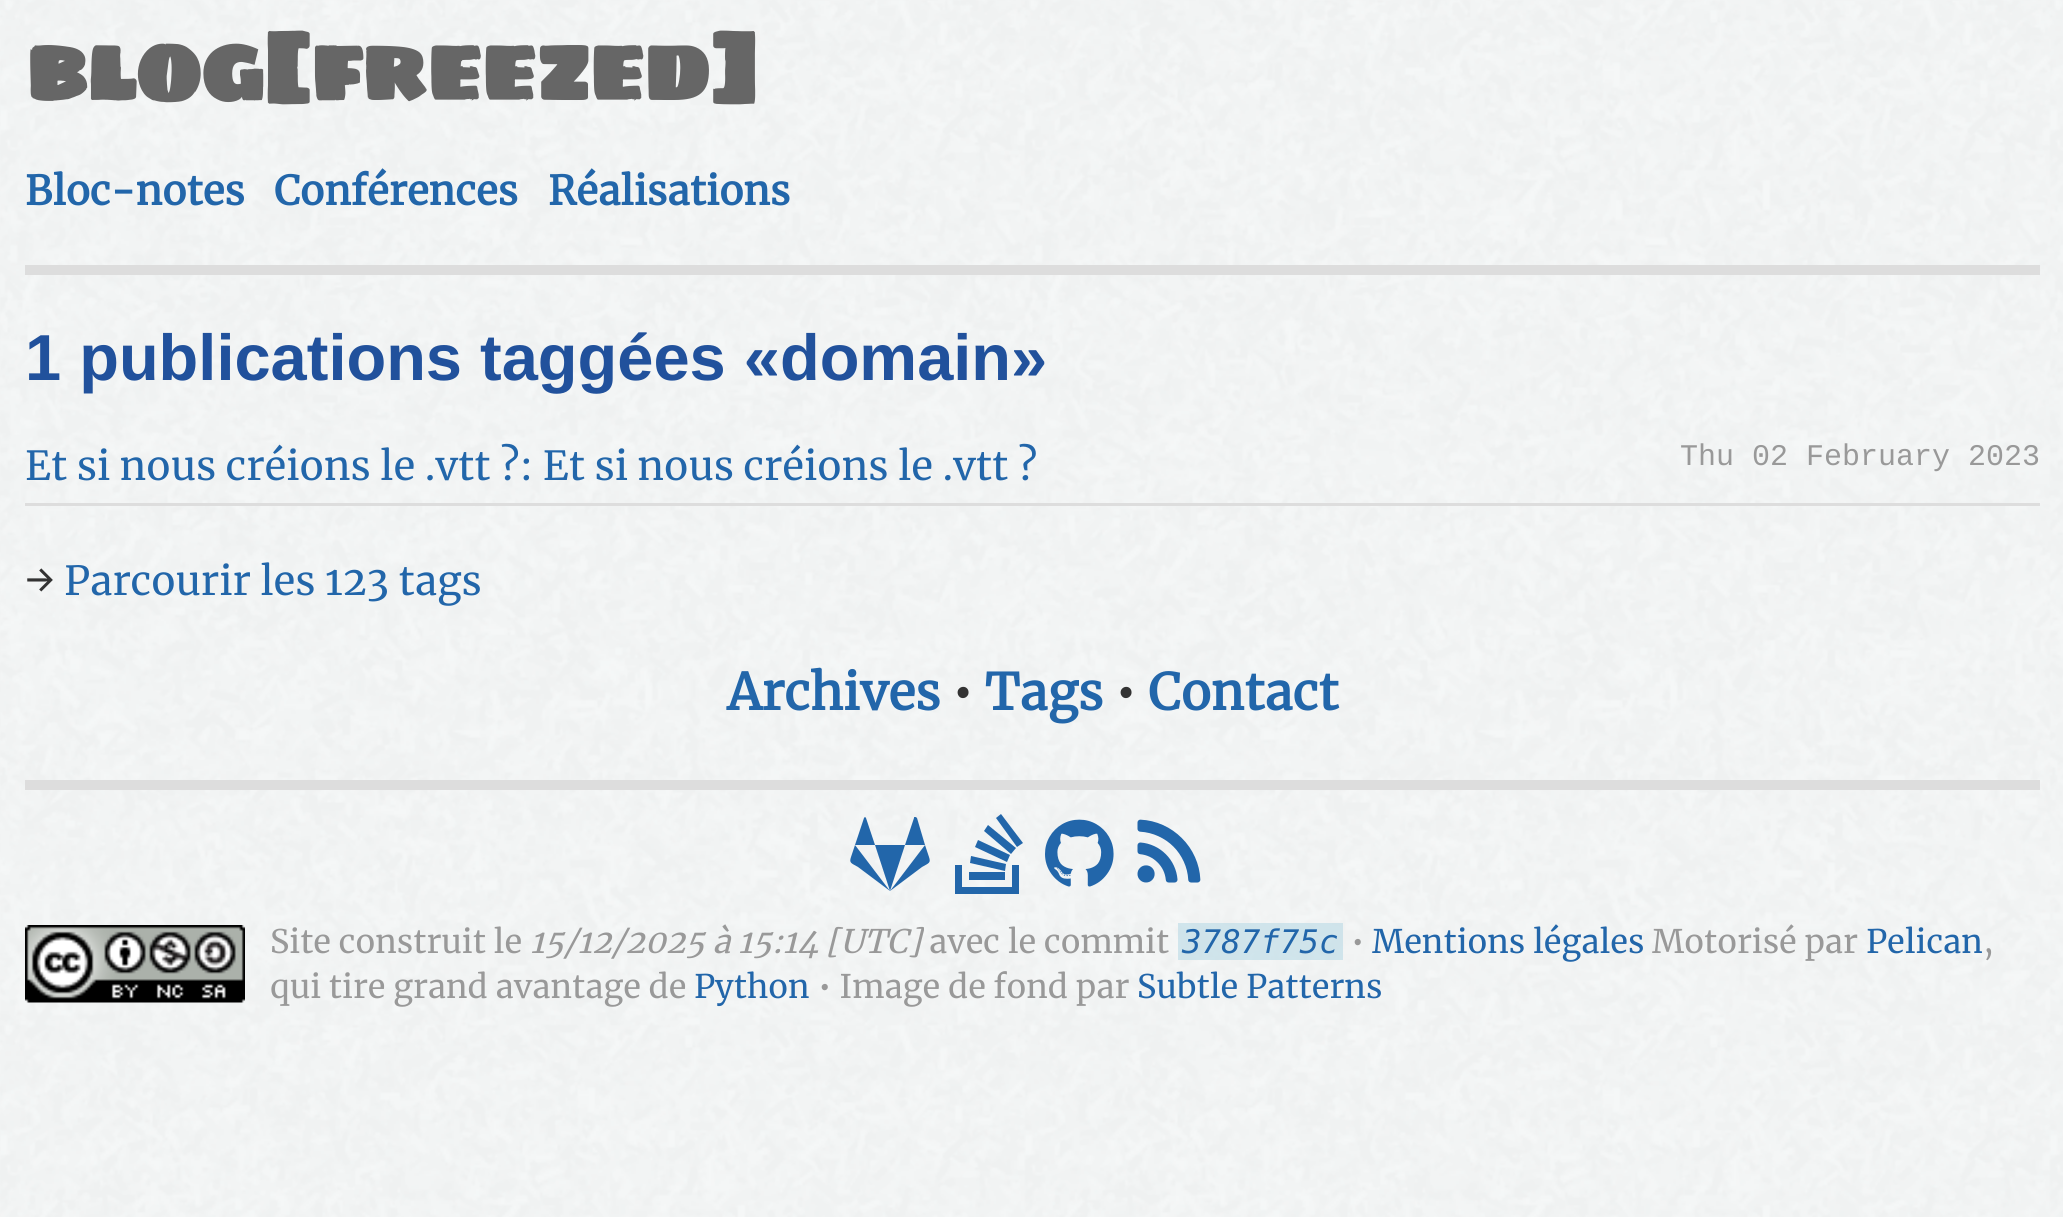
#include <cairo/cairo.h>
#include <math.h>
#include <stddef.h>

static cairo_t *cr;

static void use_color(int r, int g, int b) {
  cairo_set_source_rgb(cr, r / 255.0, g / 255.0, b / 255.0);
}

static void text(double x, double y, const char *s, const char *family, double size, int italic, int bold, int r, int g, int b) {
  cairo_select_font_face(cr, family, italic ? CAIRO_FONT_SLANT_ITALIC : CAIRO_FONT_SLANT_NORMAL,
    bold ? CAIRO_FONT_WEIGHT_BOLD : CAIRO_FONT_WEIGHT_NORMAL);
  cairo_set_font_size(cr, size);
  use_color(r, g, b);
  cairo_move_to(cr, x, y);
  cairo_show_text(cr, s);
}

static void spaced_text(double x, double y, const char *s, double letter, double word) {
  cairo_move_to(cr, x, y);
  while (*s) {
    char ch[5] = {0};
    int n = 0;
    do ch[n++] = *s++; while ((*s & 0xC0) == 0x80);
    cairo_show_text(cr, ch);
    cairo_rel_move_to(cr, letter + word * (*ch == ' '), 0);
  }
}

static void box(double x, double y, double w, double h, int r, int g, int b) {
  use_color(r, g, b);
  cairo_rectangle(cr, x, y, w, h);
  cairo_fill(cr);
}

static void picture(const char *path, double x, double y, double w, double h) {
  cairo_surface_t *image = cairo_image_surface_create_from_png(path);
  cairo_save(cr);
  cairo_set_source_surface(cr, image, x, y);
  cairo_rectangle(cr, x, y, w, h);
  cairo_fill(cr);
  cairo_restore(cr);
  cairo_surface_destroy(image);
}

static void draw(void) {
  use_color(255, 255, 255);
  cairo_paint(cr);
  picture("img_01.png", 0, 0, 2063, 1217);
  box(25, 265, 2015, 10, 221, 221, 221);
  box(25, 503, 2015, 3, 221, 221, 221);
  box(25, 780, 2015, 10, 221, 221, 221);
  use_color(34, 102, 170);
  cairo_new_path(cr);
  cairo_move_to(cr, 855, 845);
  cairo_line_to(cr, 890, 891);
  cairo_line_to(cr, 858, 867);
  cairo_curve_to(cr, 851, 863, 849, 863, 851, 857);
  cairo_close_path(cr);
  cairo_move_to(cr, 875, 845);
  cairo_line_to(cr, 905, 845);
  cairo_line_to(cr, 890, 891);
  cairo_close_path(cr);
  cairo_move_to(cr, 866, 818);
  cairo_line_to(cr, 875, 845);
  cairo_line_to(cr, 855, 845);
  cairo_line_to(cr, 864, 818);
  cairo_curve_to(cr, 864, 817, 866, 817, 866, 818);
  cairo_close_path(cr);
  cairo_move_to(cr, 925, 845);
  cairo_line_to(cr, 929, 857);
  cairo_curve_to(cr, 931, 863, 929, 863, 922, 867);
  cairo_line_to(cr, 890, 891);
  cairo_close_path(cr);
  cairo_move_to(cr, 925, 845);
  cairo_line_to(cr, 905, 845);
  cairo_line_to(cr, 914, 818);
  cairo_curve_to(cr, 914, 817, 914, 817, 915, 817);
  cairo_curve_to(cr, 916, 817, 916, 817, 917, 818);
  cairo_close_path(cr);
  cairo_fill(cr);
  cairo_new_path(cr);
  cairo_move_to(cr, 1012, 887);
  cairo_line_to(cr, 1012, 865);
  cairo_line_to(cr, 1019, 865);
  cairo_line_to(cr, 1019, 894);
  cairo_line_to(cr, 955, 894);
  cairo_line_to(cr, 955, 865);
  cairo_line_to(cr, 962, 865);
  cairo_line_to(cr, 962, 887);
  cairo_close_path(cr);
  cairo_move_to(cr, 970, 863);
  cairo_line_to(cr, 971, 856);
  cairo_line_to(cr, 1006, 864);
  cairo_line_to(cr, 1005, 871);
  cairo_close_path(cr);
  cairo_move_to(cr, 975, 847);
  cairo_line_to(cr, 978, 840);
  cairo_line_to(cr, 1010, 855);
  cairo_line_to(cr, 1007, 862);
  cairo_close_path(cr);
  cairo_move_to(cr, 984, 831);
  cairo_line_to(cr, 988, 825);
  cairo_line_to(cr, 1016, 848);
  cairo_line_to(cr, 1011, 854);
  cairo_close_path(cr);
  cairo_move_to(cr, 1001, 814);
  cairo_line_to(cr, 1023, 843);
  cairo_line_to(cr, 1017, 847);
  cairo_line_to(cr, 996, 818);
  cairo_close_path(cr);
  cairo_move_to(cr, 969, 880);
  cairo_line_to(cr, 969, 872);
  cairo_line_to(cr, 1005, 872);
  cairo_line_to(cr, 1005, 880);
  cairo_close_path(cr);
  cairo_fill(cr);
  picture("img_02.png", 1045, 819, 69, 68);
  picture("img_03.png", 1137, 819, 64, 64);
  picture("img_04.png", 25, 925, 220, 78);
  cairo_set_source_rgba(cr, 0.737, 0.855, 0.902, 0.64);
  cairo_rectangle(cr, 1178, 923, 165, 37);
  cairo_fill(cr);
  cairo_select_font_face(cr, "Sigmar One", CAIRO_FONT_SLANT_NORMAL, CAIRO_FONT_WEIGHT_BOLD);
  cairo_set_font_size(cr, 90);
  use_color(102, 102, 102);
  spaced_text(25, 100, "blog[freezed]", -2.5, 0);
  text(25, 205, "Bloc-notes", "Merriweather", 40, 0, 1, 34, 102, 170);
  text(274, 205, "Conférences", "Merriweather", 40, 0, 1, 34, 102, 170);
  text(548, 205, "Réalisations", "Merriweather", 40, 0, 1, 34, 102, 170);
  text(25, 380, "1 publications taggées «domain»", "Liberation Sans", 65, 0, 1, 33, 81, 156);
  text(25, 480, "Et si nous créions le .vtt ?: Et si nous créions le .vtt ?", "Merriweather", 40, 0, 0, 34, 102, 170);
  text(1680, 465, "Thu 02 February 2023", "Liberation Mono", 30, 0, 0, 153, 153, 153);
  text(25, 595, "→", "Merriweather", 40, 0, 0, 51, 51, 51);
  text(64, 595, "Parcourir les 123 tags", "Merriweather", 40, 0, 0, 34, 102, 170);
  text(727, 710, "Archives", "Merriweather", 50, 0, 1, 34, 102, 170);
  text(952, 710, "•", "Merriweather", 50, 0, 1, 51, 51, 51);
  text(985, 710, "Tags", "Merriweather", 50, 0, 1, 34, 102, 170);
  text(1115, 710, "•", "Merriweather", 50, 0, 1, 51, 51, 51);
  text(1148, 710, "Contact", "Merriweather", 50, 0, 1, 34, 102, 170);
  text(270, 953, "Site construit le", "Merriweather", 32.5, 0, 0, 153, 153, 153);
  text(530, 953, "15/12/2025 à 15:14 [UTC]", "Merriweather", 32.5, 1, 0, 153, 153, 153);
  text(929, 953, "avec le commit", "Merriweather", 32.5, 0, 0, 153, 153, 153);
  text(1182, 953, "3787f75c", "DejaVu Sans Mono", 32.5, 1, 0, 34, 102, 170);
  text(1351, 953, "•", "Merriweather", 32.5, 0, 0, 153, 153, 153);
  text(1372, 953, "Mentions légales", "Merriweather", 32.5, 0, 0, 34, 102, 170);
  text(1652, 953, "Motorisé par", "Merriweather", 32.5, 0, 0, 153, 153, 153);
  text(1866, 953, "Pelican", "Merriweather", 32.5, 0, 0, 34, 102, 170);
  text(1983, 953, ",", "Merriweather", 32.5, 0, 0, 153, 153, 153);
  text(270, 998, "qui tire grand avantage de", "Merriweather", 32.5, 0, 0, 153, 153, 153);
  text(694, 998, "Python", "Merriweather", 32.5, 0, 0, 34, 102, 170);
  text(818, 998, "• Image de fond par", "Merriweather", 32.5, 0, 0, 153, 153, 153);
  text(1137, 998, "Subtle Patterns", "Merriweather", 32.5, 0, 0, 34, 102, 170);
}

int main(void) {
  cairo_surface_t *surface = cairo_image_surface_create(CAIRO_FORMAT_RGB24, 2063, 1217);
  cr = cairo_create(surface);
  cairo_font_options_t *options = cairo_font_options_create();
  cairo_font_options_set_hint_metrics(options, CAIRO_HINT_METRICS_OFF);
  cairo_font_options_set_hint_style(options, CAIRO_HINT_STYLE_NONE);
  cairo_set_font_options(cr, options);
  cairo_set_miter_limit(cr, 4);
  draw();
  cairo_surface_write_to_png(surface, "out.png");
  cairo_font_options_destroy(options);
  cairo_destroy(cr);
  cairo_surface_destroy(surface);
  return 0;
}
